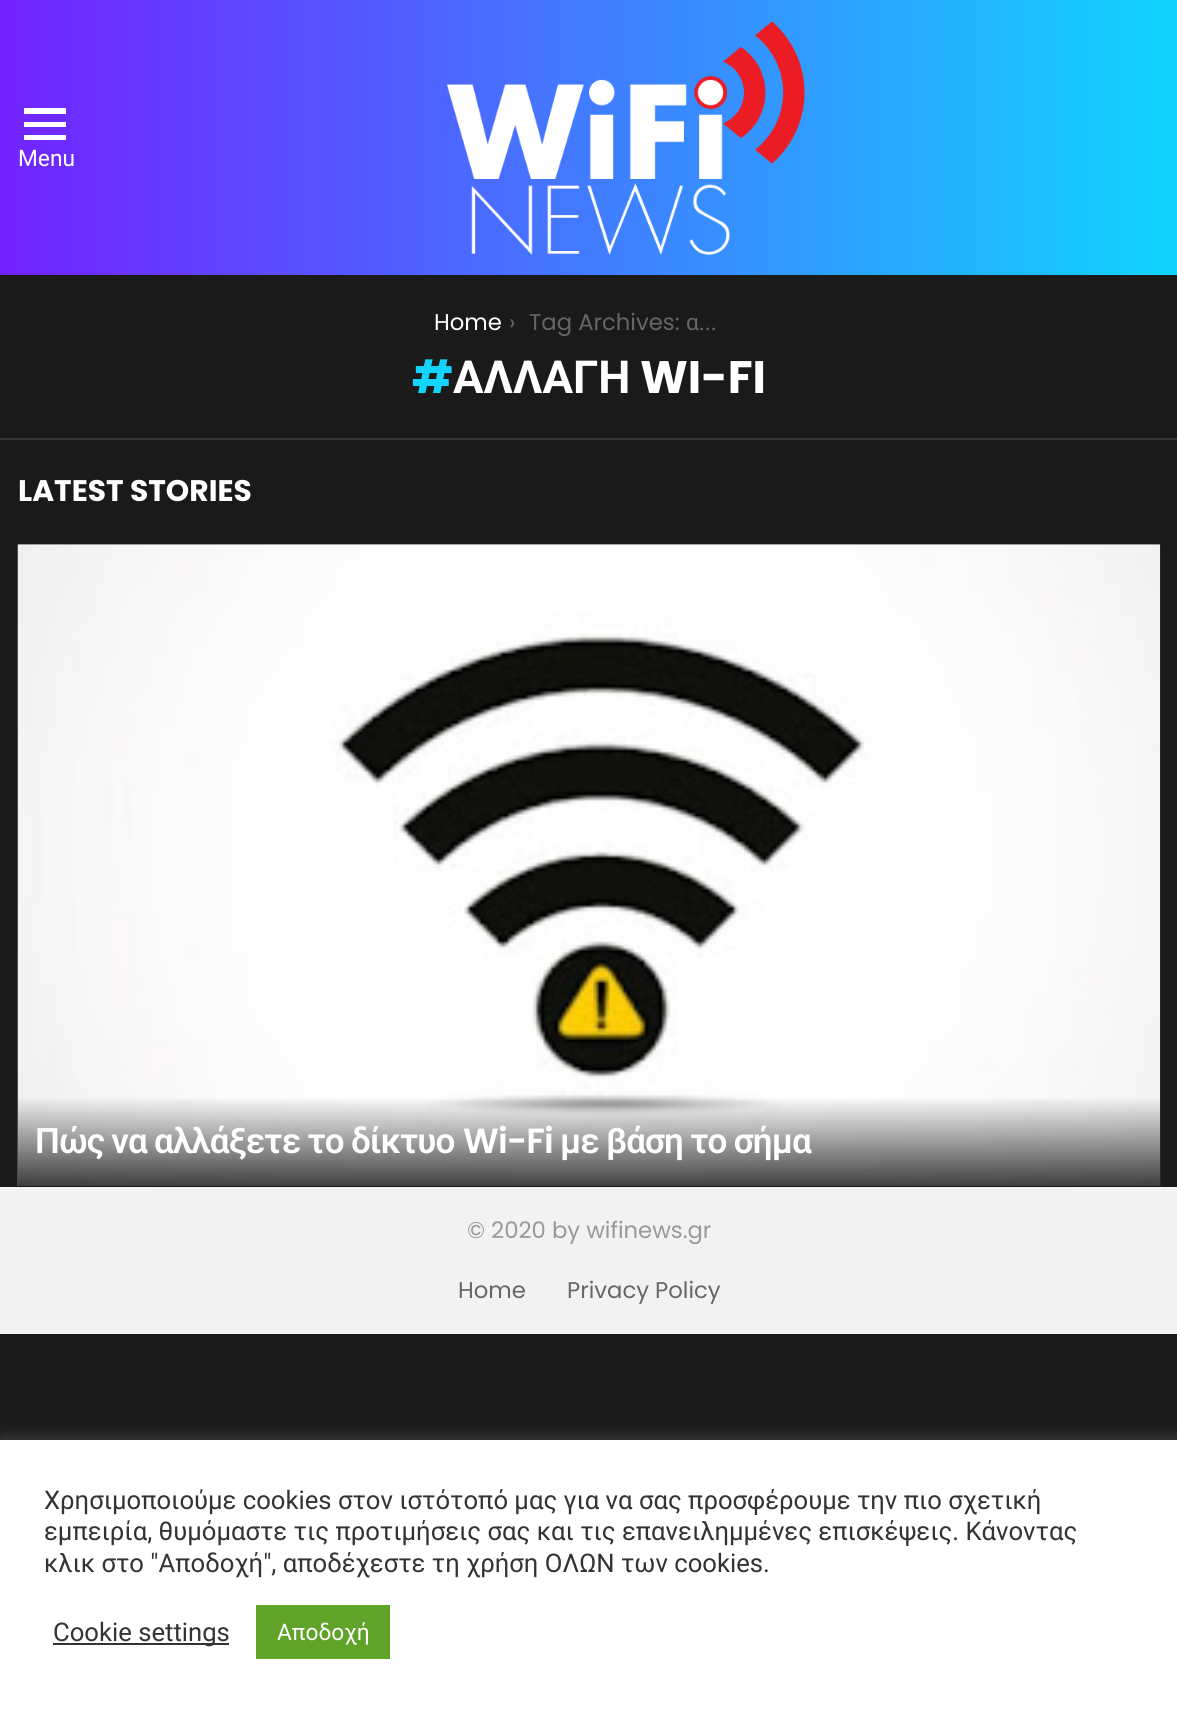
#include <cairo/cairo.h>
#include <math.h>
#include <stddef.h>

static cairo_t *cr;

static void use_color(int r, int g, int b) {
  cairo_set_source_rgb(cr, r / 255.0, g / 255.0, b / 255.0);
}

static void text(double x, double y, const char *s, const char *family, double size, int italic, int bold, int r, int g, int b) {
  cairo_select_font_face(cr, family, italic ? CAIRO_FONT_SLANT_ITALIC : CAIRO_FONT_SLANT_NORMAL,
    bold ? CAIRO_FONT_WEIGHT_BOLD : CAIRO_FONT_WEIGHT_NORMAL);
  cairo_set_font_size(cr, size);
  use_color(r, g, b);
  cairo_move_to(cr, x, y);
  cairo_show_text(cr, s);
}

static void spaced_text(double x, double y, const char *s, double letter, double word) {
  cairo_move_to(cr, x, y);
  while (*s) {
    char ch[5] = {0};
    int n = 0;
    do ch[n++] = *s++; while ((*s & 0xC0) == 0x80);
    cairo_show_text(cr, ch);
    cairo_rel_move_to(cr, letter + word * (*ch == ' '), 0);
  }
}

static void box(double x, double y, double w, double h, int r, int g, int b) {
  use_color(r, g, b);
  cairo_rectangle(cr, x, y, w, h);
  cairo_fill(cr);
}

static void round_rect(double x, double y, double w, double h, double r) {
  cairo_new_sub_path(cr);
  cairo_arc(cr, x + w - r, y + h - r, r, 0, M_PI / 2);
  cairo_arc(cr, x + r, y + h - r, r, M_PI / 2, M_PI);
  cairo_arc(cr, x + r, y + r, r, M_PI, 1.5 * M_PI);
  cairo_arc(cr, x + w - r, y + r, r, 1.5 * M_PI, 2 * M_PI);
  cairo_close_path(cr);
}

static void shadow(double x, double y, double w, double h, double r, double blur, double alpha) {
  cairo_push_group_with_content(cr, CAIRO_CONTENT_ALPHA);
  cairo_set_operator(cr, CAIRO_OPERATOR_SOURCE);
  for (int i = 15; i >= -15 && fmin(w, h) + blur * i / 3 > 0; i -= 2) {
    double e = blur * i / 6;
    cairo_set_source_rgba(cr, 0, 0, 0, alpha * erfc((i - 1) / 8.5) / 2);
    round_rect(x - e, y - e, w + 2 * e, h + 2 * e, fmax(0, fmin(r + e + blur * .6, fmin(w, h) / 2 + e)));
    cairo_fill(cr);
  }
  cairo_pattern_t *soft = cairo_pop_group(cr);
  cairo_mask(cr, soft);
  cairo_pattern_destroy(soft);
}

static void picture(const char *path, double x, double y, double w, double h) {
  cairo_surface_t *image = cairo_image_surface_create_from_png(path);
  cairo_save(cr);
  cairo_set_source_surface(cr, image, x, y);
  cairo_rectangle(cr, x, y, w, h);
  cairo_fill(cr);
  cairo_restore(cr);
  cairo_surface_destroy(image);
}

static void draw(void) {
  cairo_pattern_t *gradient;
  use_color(26, 26, 26);
  cairo_paint(cr);
  gradient = cairo_pattern_create_linear(0, 137, 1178, 137);
  cairo_pattern_add_color_stop_rgba(gradient, 0, 0.447, 0.133, 1, 1);
  cairo_pattern_add_color_stop_rgba(gradient, 1, 0.067, 0.835, 1, 1);
  cairo_set_source(cr, gradient);
  cairo_pattern_destroy(gradient);
  cairo_rectangle(cr, 0, 0, 1177, 275);
  cairo_fill(cr);
  use_color(255, 255, 255);
  cairo_new_path(cr);
  cairo_move_to(cr, 24, 108);
  cairo_line_to(cr, 66, 108);
  cairo_line_to(cr, 66, 114);
  cairo_line_to(cr, 24, 114);
  cairo_close_path(cr);
  cairo_move_to(cr, 24, 122);
  cairo_line_to(cr, 66, 122);
  cairo_line_to(cr, 66, 127);
  cairo_line_to(cr, 24, 127);
  cairo_close_path(cr);
  cairo_move_to(cr, 24, 135);
  cairo_line_to(cr, 66, 135);
  cairo_line_to(cr, 66, 140);
  cairo_line_to(cr, 24, 140);
  cairo_close_path(cr);
  cairo_fill(cr);
  picture("img_01.png", 447, 21, 358, 234);
  box(0, 438, 1177, 2, 51, 51, 51);
  box(18, 544, 1142, 643, 51, 51, 51);
  picture("img_02.png", 17, 544, 1144, 643);
  gradient = cairo_pattern_create_linear(589, 1096, 589, 1187);
  cairo_pattern_add_color_stop_rgba(gradient, 0, 0, 0, 0, 0);
  cairo_pattern_add_color_stop_rgba(gradient, 1, 0, 0, 0, 0.75);
  cairo_set_source(cr, gradient);
  cairo_pattern_destroy(gradient);
  cairo_rectangle(cr, 18, 1099, 1142, 88);
  cairo_fill(cr);
  box(0, 1187, 1177, 147, 242, 242, 242);
  use_color(172, 171, 171);
  shadow(0, 1439, 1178, 271, 0, 9, 0.3);
  box(0, 1440, 1177, 271, 255, 255, 255);
  box(53, 1643, 176, 2, 51, 51, 51);
  box(256, 1605, 134, 54, 97, 162, 41);
  text(18, 166, "Menu", "Roboto", 22.75, 0, 0, 255, 255, 255);
  text(434, 330, "Home", "Poppins", 22.75, 0, 0, 255, 255, 255);
  text(509, 330, "›", "Poppins", 22.75, 0, 0, 102, 102, 102);
  text(529, 330, "Tag Archives:", "Poppins", 22.75, 0, 0, 102, 102, 102);
  text(686, 330, "α...", "Roboto", 22.75, 0, 0, 102, 102, 102);
  text(412, 393, "#", "Poppins", 45.5, 0, 1, 17, 213, 255);
  text(453, 393, "ΑΛΛΑΓΗ", "Roboto", 45.5, 0, 1, 255, 255, 255);
  text(640, 393, "WI-FI", "Poppins", 45.5, 0, 1, 255, 255, 255);
  text(18, 501, "LATEST STORIES", "Poppins", 29.75, 0, 1, 255, 255, 255);
  cairo_select_font_face(cr, "Roboto SemiBold", CAIRO_FONT_SLANT_NORMAL, CAIRO_FONT_WEIGHT_NORMAL);
  cairo_set_font_size(cr, 35);
  spaced_text(35, 1153, "Πώς να αλλάξετε το δίκτυο", -0.9, -0.5);
  cairo_select_font_face(cr, "Poppins SemiBold", CAIRO_FONT_SLANT_NORMAL, CAIRO_FONT_WEIGHT_NORMAL);
  spaced_text(463, 1153, "Wi-Fi", -0.9, 0);
  cairo_select_font_face(cr, "Roboto SemiBold", CAIRO_FONT_SLANT_NORMAL, CAIRO_FONT_WEIGHT_NORMAL);
  spaced_text(560, 1153, "με βάση το σήμα", -0.9, -0.5);
  text(467, 1238, "© 2020 by wifinews.gr", "Poppins", 22.75, 0, 0, 153, 153, 153);
  text(458, 1298, "Home", "Poppins", 22.75, 0, 0, 102, 102, 102);
  text(567, 1298, "Privacy Policy", "Poppins", 22.75, 0, 0, 102, 102, 102);
  text(44, 1509, "Χρησιμοποιούμε cookies στον ιστότοπό μας για να σας προσφέρουμε την πιο σχετική", "Roboto", 25.65, 0, 0, 51, 51, 51);
  text(44, 1540, "εμπειρία, θυμόμαστε τις προτιμήσεις σας και τις επανειλημμένες επισκέψεις. Κάνοντας", "Roboto", 25.65, 0, 0, 51, 51, 51);
  text(44, 1572, "κλικ στο \"Αποδοχή\", αποδέχεστε τη χρήση ΟΛΩΝ των cookies.", "Roboto", 25.65, 0, 0, 51, 51, 51);
  text(53, 1641, "Cookie settings", "Roboto", 25.65, 0, 0, 51, 51, 51);
  text(277, 1640, "Αποδοχή", "Roboto", 22.75, 0, 0, 255, 255, 255);
}

int main(void) {
  cairo_surface_t *surface = cairo_image_surface_create(CAIRO_FORMAT_RGB24, 1177, 1711);
  cr = cairo_create(surface);
  cairo_font_options_t *options = cairo_font_options_create();
  cairo_font_options_set_hint_metrics(options, CAIRO_HINT_METRICS_OFF);
  cairo_font_options_set_hint_style(options, CAIRO_HINT_STYLE_NONE);
  cairo_set_font_options(cr, options);
  cairo_set_miter_limit(cr, 4);
  draw();
  cairo_surface_write_to_png(surface, "out.png");
  cairo_font_options_destroy(options);
  cairo_destroy(cr);
  cairo_surface_destroy(surface);
  return 0;
}
